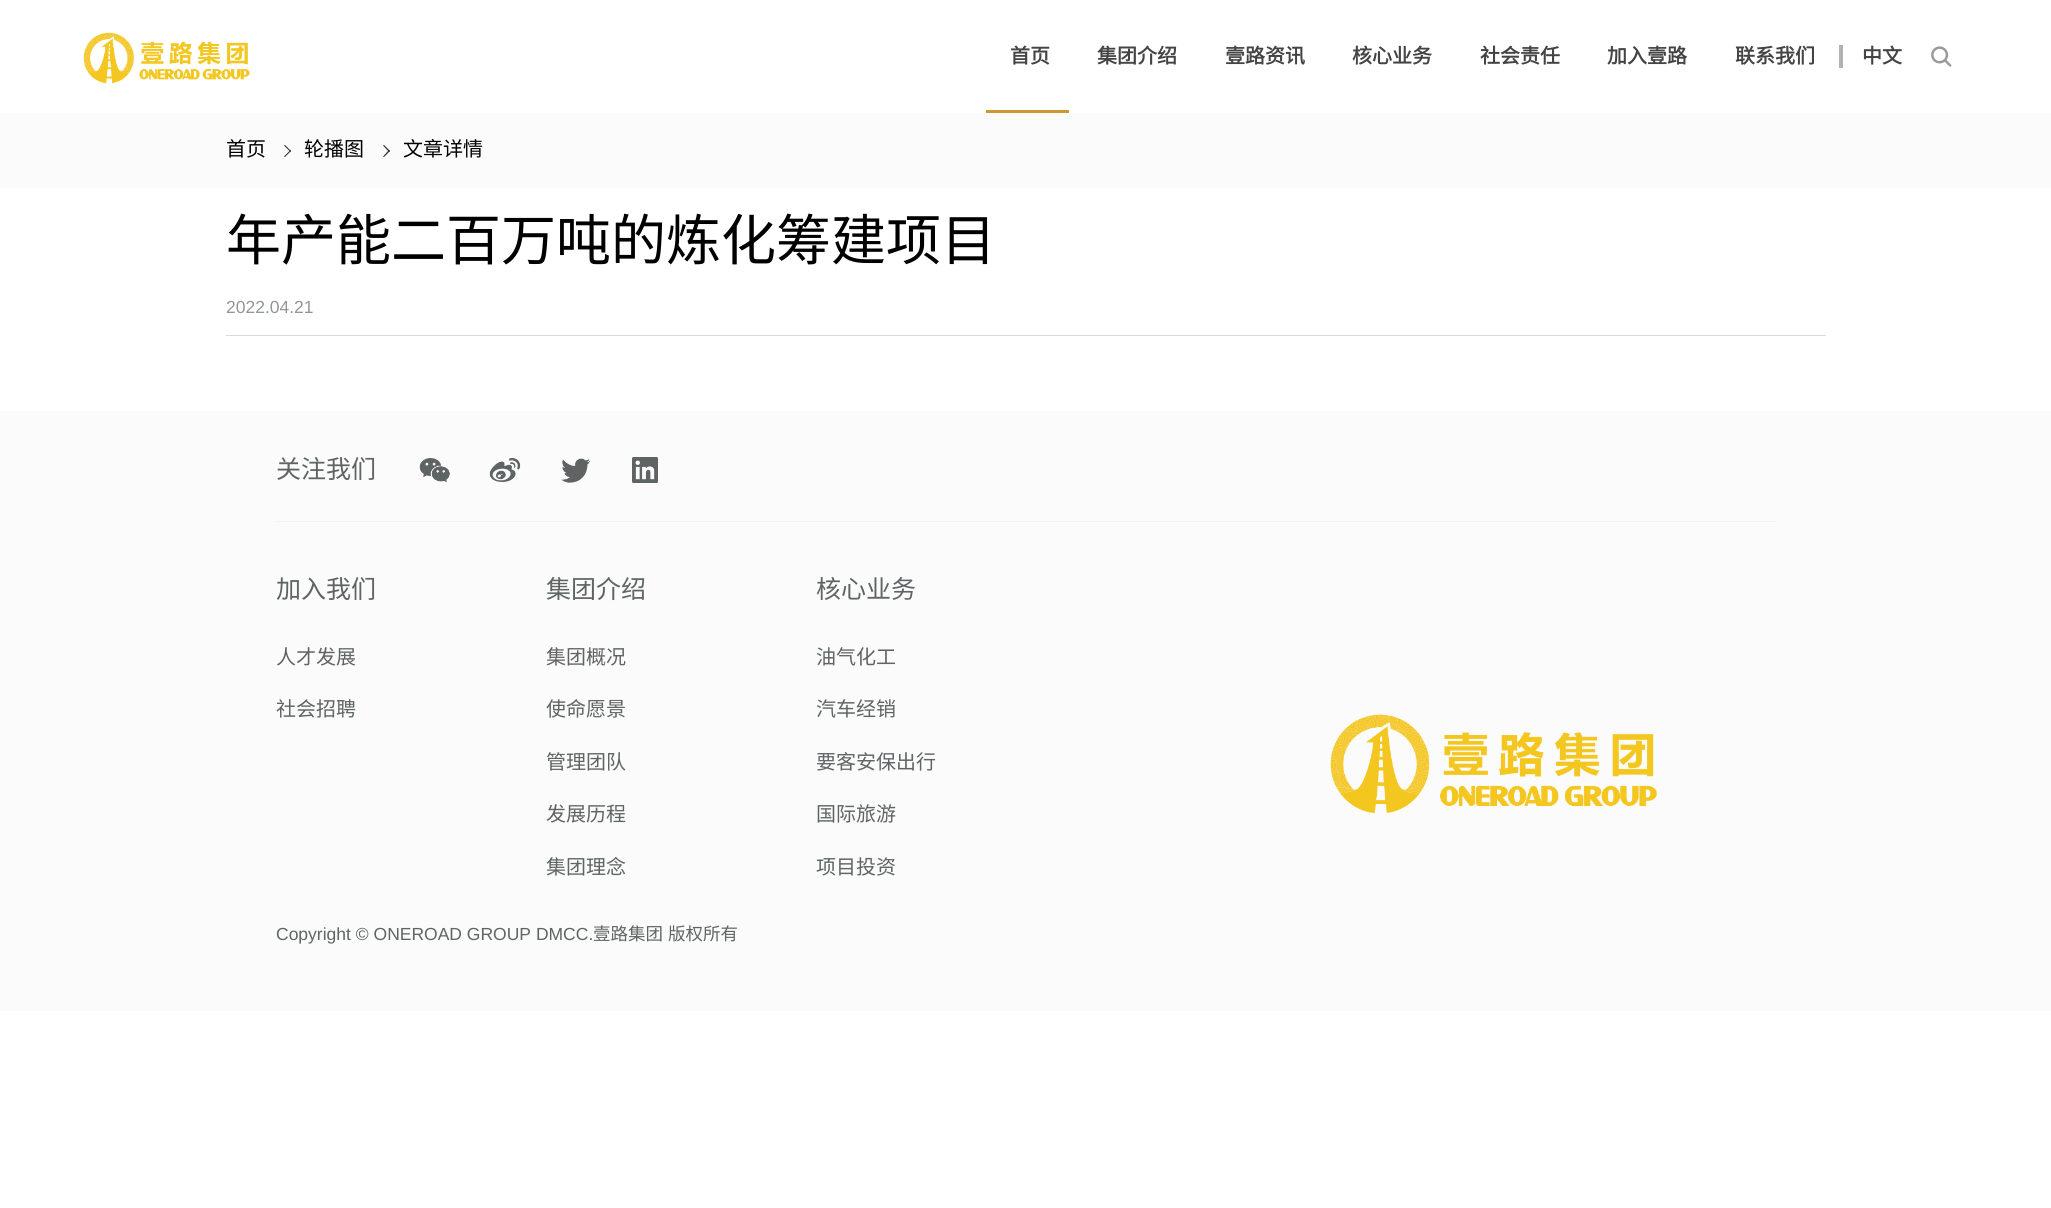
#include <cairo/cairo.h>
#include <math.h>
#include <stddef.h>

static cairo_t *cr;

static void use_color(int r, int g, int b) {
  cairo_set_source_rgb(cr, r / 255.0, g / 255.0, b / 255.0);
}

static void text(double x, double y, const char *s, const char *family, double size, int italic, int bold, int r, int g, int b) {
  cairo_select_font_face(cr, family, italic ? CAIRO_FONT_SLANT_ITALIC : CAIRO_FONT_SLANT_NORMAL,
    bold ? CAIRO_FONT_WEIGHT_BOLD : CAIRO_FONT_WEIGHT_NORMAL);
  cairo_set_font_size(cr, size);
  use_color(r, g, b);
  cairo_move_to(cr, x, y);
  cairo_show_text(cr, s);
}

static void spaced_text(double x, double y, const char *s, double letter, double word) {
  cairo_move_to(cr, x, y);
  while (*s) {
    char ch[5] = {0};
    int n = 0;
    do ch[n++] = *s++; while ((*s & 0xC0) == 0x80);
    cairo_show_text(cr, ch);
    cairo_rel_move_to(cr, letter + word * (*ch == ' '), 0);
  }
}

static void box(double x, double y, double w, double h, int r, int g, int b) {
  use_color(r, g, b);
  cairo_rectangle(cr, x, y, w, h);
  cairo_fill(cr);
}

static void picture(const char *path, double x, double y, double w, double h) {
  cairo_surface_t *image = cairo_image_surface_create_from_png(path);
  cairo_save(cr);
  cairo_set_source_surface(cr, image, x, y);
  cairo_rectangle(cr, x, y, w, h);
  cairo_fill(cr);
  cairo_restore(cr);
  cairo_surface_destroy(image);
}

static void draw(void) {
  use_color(255, 255, 255);
  cairo_paint(cr);
  picture("img_01.png", 83, 32, 167, 52);
  box(1839, 45, 4, 23, 178, 178, 178);
  box(986, 110, 83, 3, 202, 153, 51);
  picture("img_02.png", 1931, 46, 21, 21);
  box(0, 113, 2051, 75, 251, 251, 251);
  use_color(43, 46, 46);
  cairo_new_path(cr);
  cairo_move_to(cr, 285, 145);
  cairo_line_to(cr, 291, 151);
  cairo_line_to(cr, 290.5, 152);
  cairo_line_to(cr, 284, 145.5);
  cairo_close_path(cr);
  cairo_fill(cr);
  cairo_new_path(cr);
  cairo_move_to(cr, 290.5, 150);
  cairo_line_to(cr, 291, 151);
  cairo_line_to(cr, 285, 157);
  cairo_line_to(cr, 284, 156.5);
  cairo_close_path(cr);
  cairo_fill(cr);
  cairo_new_path(cr);
  cairo_move_to(cr, 384, 145);
  cairo_line_to(cr, 390, 151);
  cairo_line_to(cr, 389, 152);
  cairo_line_to(cr, 383, 145.5);
  cairo_close_path(cr);
  cairo_fill(cr);
  cairo_new_path(cr);
  cairo_move_to(cr, 389, 150);
  cairo_line_to(cr, 390, 151);
  cairo_line_to(cr, 384, 157);
  cairo_line_to(cr, 383, 156.5);
  cairo_close_path(cr);
  cairo_fill(cr);
  box(226, 335, 1600, 1, 216, 217, 220);
  box(0, 411, 2051, 600, 251, 251, 251);
  box(276, 521, 1500, 1, 242, 243, 245);
  picture("img_03.png", 419, 458, 31, 25);
  picture("img_04.png", 489, 458, 32, 24);
  picture("img_05.png", 561, 458, 29, 25);
  picture("img_06.png", 632, 457, 26, 26);
  picture("img_07.png", 1330, 714, 327, 100);
  text(1010, 63, "首页", "Noto Sans CJK SC", 20, 0, 1, 68, 68, 68);
  text(1097, 63, "集团介绍", "Noto Sans CJK SC", 20, 0, 1, 68, 68, 68);
  text(1225, 63, "壹路资讯", "Noto Sans CJK SC", 20, 0, 1, 68, 68, 68);
  text(1352, 63, "核心业务", "Noto Sans CJK SC", 20, 0, 1, 68, 68, 68);
  text(1480, 63, "社会责任", "Noto Sans CJK SC", 20, 0, 1, 68, 68, 68);
  text(1607, 63, "加入壹路", "Noto Sans CJK SC", 20, 0, 1, 68, 68, 68);
  text(1735, 63, "联系我们", "Noto Sans CJK SC", 20, 0, 1, 68, 68, 68);
  text(1862, 63, "中文", "Noto Sans CJK SC", 20, 0, 1, 68, 68, 68);
  text(226, 156, "首页", "Noto Sans CJK SC", 20, 0, 0, 0, 0, 0);
  text(304, 156, "轮播图", "Noto Sans CJK SC", 20, 0, 0, 0, 0, 0);
  text(403, 156, "文章详情", "Noto Sans CJK SC", 20, 0, 0, 0, 0, 0);
  text(226, 260, "年产能二百万吨的炼化筹建项目", "Noto Sans CJK SC", 55, 0, 0, 0, 0, 0);
  text(226, 313, "2022.04.21", "Liberation Sans", 17.5, 0, 0, 145, 151, 151);
  text(276, 478, "关注我们", "Noto Sans CJK SC", 25, 0, 0, 95, 100, 100);
  text(276, 598, "加入我们", "Noto Sans CJK SC", 25, 0, 0, 95, 100, 100);
  text(276, 664, "人才发展", "Noto Sans CJK SC", 20, 0, 0, 95, 100, 100);
  text(276, 716, "社会招聘", "Noto Sans CJK SC", 20, 0, 0, 95, 100, 100);
  text(546, 598, "集团介绍", "Noto Sans CJK SC", 25, 0, 0, 95, 100, 100);
  text(546, 664, "集团概况", "Noto Sans CJK SC", 20, 0, 0, 95, 100, 100);
  text(546, 716, "使命愿景", "Noto Sans CJK SC", 20, 0, 0, 95, 100, 100);
  text(546, 769, "管理团队", "Noto Sans CJK SC", 20, 0, 0, 95, 100, 100);
  text(546, 821, "发展历程", "Noto Sans CJK SC", 20, 0, 0, 95, 100, 100);
  text(546, 874, "集团理念", "Noto Sans CJK SC", 20, 0, 0, 95, 100, 100);
  text(816, 598, "核心业务", "Noto Sans CJK SC", 25, 0, 0, 95, 100, 100);
  text(816, 664, "油气化工", "Noto Sans CJK SC", 20, 0, 0, 95, 100, 100);
  text(816, 716, "汽车经销", "Noto Sans CJK SC", 20, 0, 0, 95, 100, 100);
  text(816, 769, "要客安保出行", "Noto Sans CJK SC", 20, 0, 0, 95, 100, 100);
  text(816, 821, "国际旅游", "Noto Sans CJK SC", 20, 0, 0, 95, 100, 100);
  text(816, 874, "项目投资", "Noto Sans CJK SC", 20, 0, 0, 95, 100, 100);
  text(276, 940, "Copyright © ONEROAD GROUP DMCC.", "Liberation Sans", 17.5, 0, 0, 95, 100, 100);
  cairo_select_font_face(cr, "Noto Sans CJK SC", CAIRO_FONT_SLANT_NORMAL, CAIRO_FONT_WEIGHT_NORMAL);
  spaced_text(593, 940, "壹路集团 版权所有", 0, 1);
}

int main(void) {
  cairo_surface_t *surface = cairo_image_surface_create(CAIRO_FORMAT_RGB24, 2051, 1208);
  cr = cairo_create(surface);
  cairo_font_options_t *options = cairo_font_options_create();
  cairo_font_options_set_hint_metrics(options, CAIRO_HINT_METRICS_OFF);
  cairo_font_options_set_hint_style(options, CAIRO_HINT_STYLE_NONE);
  cairo_set_font_options(cr, options);
  cairo_set_miter_limit(cr, 4);
  draw();
  cairo_surface_write_to_png(surface, "out.png");
  cairo_font_options_destroy(options);
  cairo_destroy(cr);
  cairo_surface_destroy(surface);
  return 0;
}
